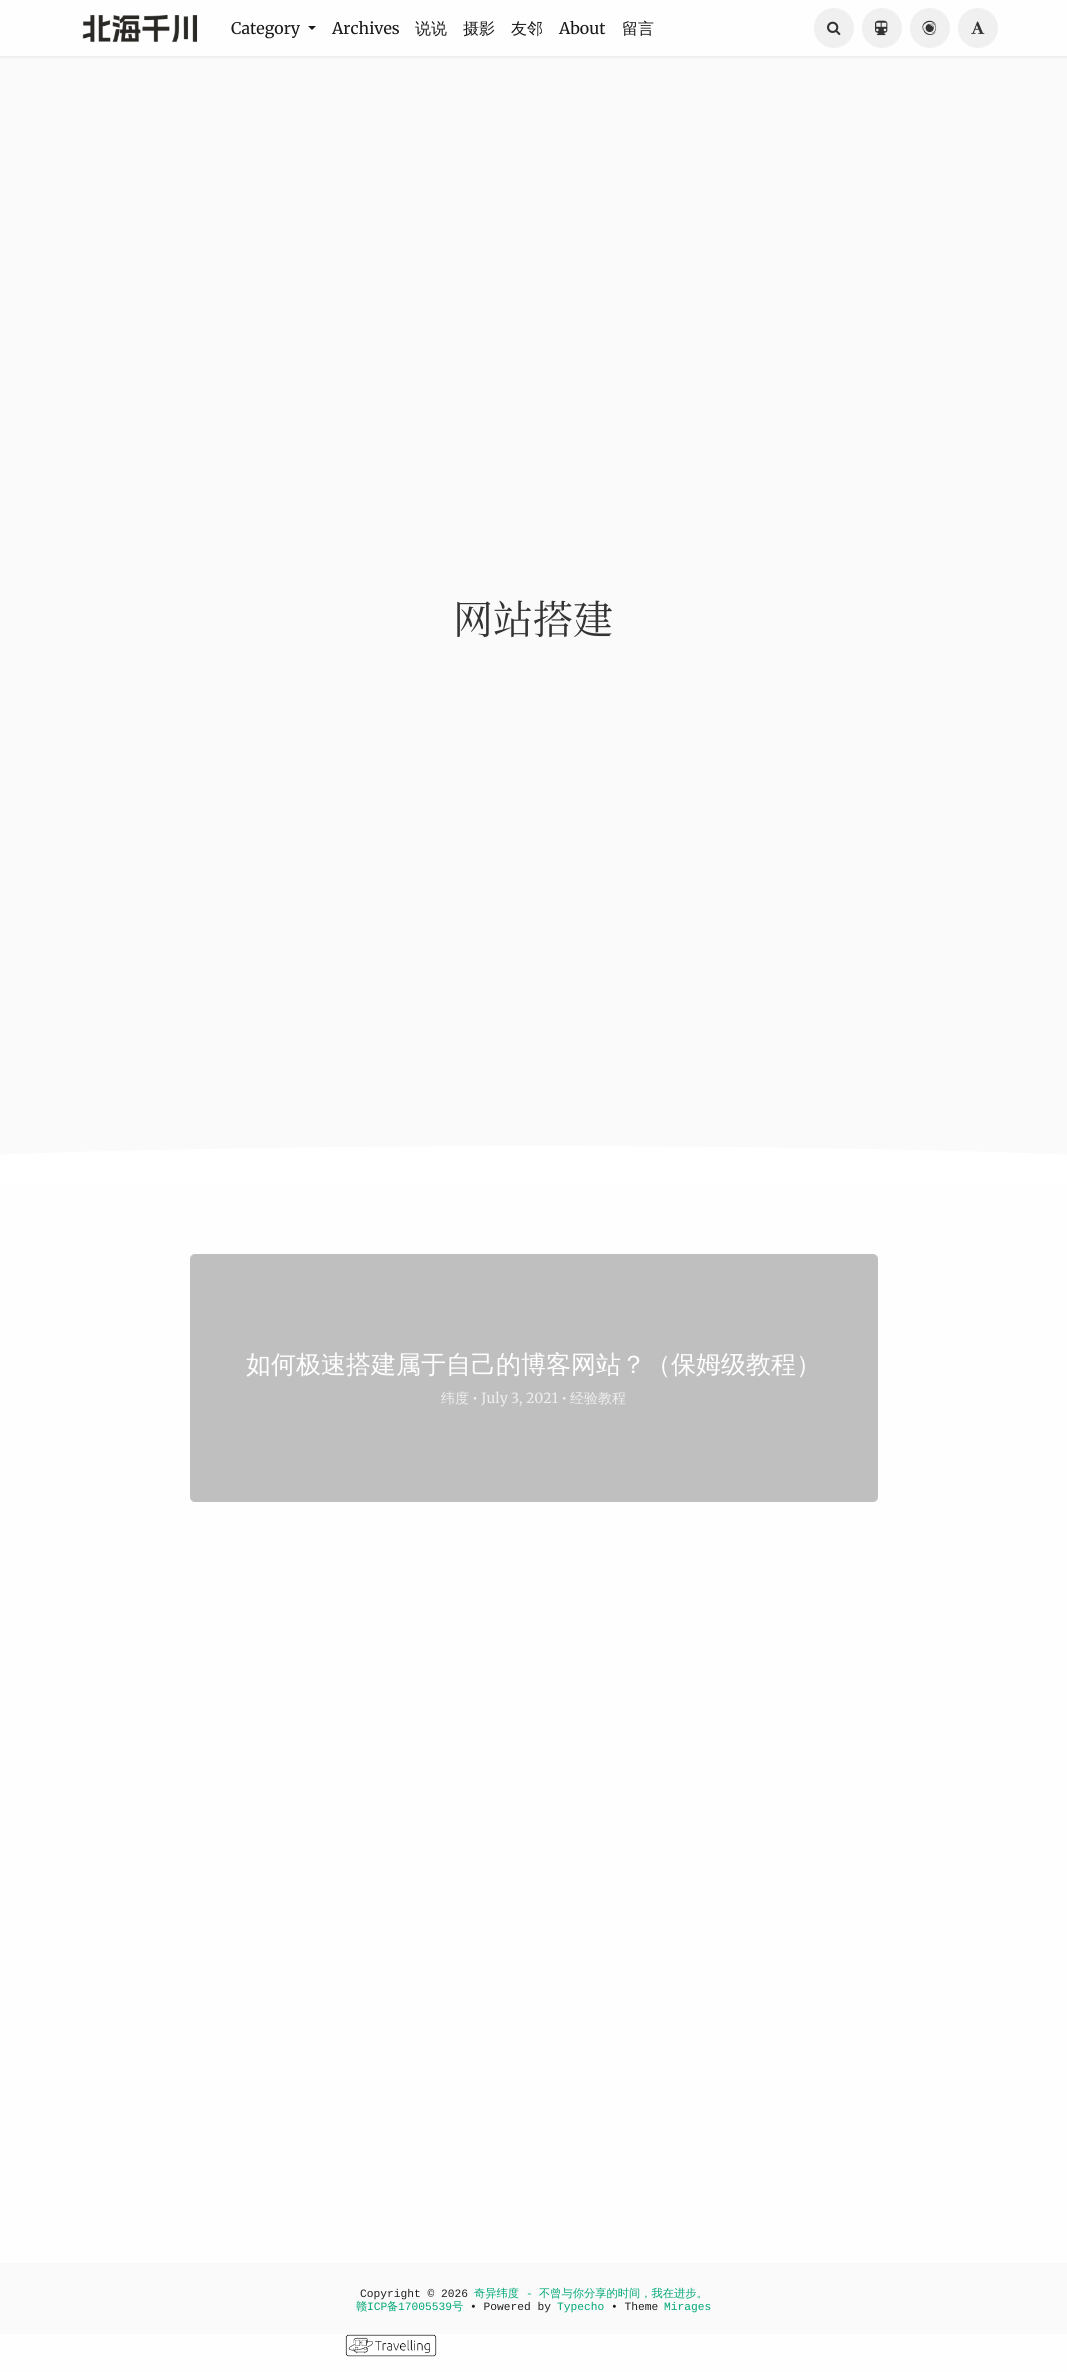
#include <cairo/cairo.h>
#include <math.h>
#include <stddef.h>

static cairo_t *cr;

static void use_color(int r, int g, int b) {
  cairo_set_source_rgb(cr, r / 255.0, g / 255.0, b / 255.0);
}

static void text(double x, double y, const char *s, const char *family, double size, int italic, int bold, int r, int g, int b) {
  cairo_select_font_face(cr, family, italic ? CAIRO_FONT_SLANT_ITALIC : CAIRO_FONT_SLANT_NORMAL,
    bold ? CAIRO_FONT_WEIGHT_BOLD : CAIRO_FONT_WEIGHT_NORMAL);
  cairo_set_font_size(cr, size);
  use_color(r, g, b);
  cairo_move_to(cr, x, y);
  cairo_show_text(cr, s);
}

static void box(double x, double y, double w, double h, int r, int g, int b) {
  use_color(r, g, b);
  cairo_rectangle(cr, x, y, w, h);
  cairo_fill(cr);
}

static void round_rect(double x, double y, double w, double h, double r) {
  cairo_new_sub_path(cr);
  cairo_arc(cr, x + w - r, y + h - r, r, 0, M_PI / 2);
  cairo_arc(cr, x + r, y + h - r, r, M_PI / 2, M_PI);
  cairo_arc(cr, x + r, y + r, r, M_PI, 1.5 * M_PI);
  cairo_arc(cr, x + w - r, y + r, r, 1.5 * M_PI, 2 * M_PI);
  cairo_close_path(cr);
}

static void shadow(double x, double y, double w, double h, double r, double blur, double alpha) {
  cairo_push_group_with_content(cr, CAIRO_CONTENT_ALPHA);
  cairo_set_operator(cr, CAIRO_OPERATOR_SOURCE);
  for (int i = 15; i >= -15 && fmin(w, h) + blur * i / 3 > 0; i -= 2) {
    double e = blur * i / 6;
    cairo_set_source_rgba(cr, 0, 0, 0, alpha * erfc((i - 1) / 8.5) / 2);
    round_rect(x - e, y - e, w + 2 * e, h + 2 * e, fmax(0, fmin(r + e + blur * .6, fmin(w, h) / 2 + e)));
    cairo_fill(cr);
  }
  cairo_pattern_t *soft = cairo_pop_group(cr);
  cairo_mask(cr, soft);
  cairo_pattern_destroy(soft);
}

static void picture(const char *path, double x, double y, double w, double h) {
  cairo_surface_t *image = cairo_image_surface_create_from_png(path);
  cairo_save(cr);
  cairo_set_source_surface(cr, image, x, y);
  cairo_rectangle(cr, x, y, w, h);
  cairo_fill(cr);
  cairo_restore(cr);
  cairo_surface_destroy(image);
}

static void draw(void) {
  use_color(254, 254, 254);
  cairo_paint(cr);
  box(0, 56, 1067, 1099, 250, 250, 250);
  use_color(0, 0, 0);
  shadow(-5, 10, 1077, 46, 0, 2.5, 0.12);
  box(0, 7, 1067, 49, 254, 254, 254);
  picture("img_01.png", 82, 14, 116, 29);
  use_color(25, 25, 25);
  cairo_new_path(cr);
  cairo_move_to(cr, 308, 26);
  cairo_line_to(cr, 316, 26);
  cairo_line_to(cr, 312, 30);
  cairo_close_path(cr);
  cairo_fill(cr);
  use_color(240, 240, 240);
  cairo_arc(cr, 834, 28, 20, 0, 2 * M_PI);
  cairo_fill(cr);
  picture("img_02.png", 827, 21, 14, 14);
  cairo_arc(cr, 882, 28, 20, 0, 2 * M_PI);
  cairo_fill(cr);
  picture("img_03.png", 875, 20, 13, 16);
  cairo_arc(cr, 930, 28, 20, 0, 2 * M_PI);
  cairo_fill(cr);
  picture("img_04.png", 922, 20, 15, 15);
  cairo_arc(cr, 978, 28, 20, 0, 2 * M_PI);
  cairo_fill(cr);
  picture("img_05.png", 971, 21, 14, 13);
  cairo_save(cr);
  cairo_rectangle(cr, 0, 0, 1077, 1186);
  cairo_clip(cr);
  use_color(255, 255, 255);
  cairo_new_path(cr);
  cairo_move_to(cr, 533, 1146);
  cairo_curve_to(cr, 983.5, 1146, 1349, 1161.5, 1349, 1181);
  cairo_curve_to(cr, 1349, 1200.5, 983.5, 1216, 533, 1216);
  cairo_curve_to(cr, 82.5, 1216, -283, 1200.5, -283, 1181);
  cairo_curve_to(cr, -283, 1161.5, 82.5, 1146, 533, 1146);
  cairo_close_path(cr);
  cairo_fill(cr);
  cairo_restore(cr);
  use_color(191, 191, 191);
  round_rect(190, 1254, 688, 248, 5);
  cairo_fill(cr);
  box(0, 2263, 1067, 71, 250, 250, 250);
  picture("img_06.png", 345, 2334, 92, 23);
  text(231, 34, "Category", "Merriweather", 16, 0, 0, 25, 25, 25);
  text(332, 34, "Archives", "Merriweather", 16, 0, 0, 25, 25, 25);
  text(415, 34, "说说", "WenQuanYi Zen Hei Medium", 16, 0, 0, 25, 25, 25);
  text(463, 34, "摄影", "WenQuanYi Zen Hei Medium", 16, 0, 0, 25, 25, 25);
  text(511, 34, "友邻", "WenQuanYi Zen Hei Medium", 16, 0, 0, 25, 25, 25);
  text(559, 34, "About", "Merriweather", 16, 0, 0, 25, 25, 25);
  text(622, 34, "留言", "WenQuanYi Zen Hei Medium", 16, 0, 0, 25, 25, 25);
  text(453, 634, "网站搭建", "Noto Serif CJK SC", 40, 0, 0, 51, 51, 51);
  text(246, 1373, "如何极速搭建属于自己的博客网站？（保姆级教程）", "WenQuanYi Zen Hei Medium", 25, 0, 0, 255, 255, 255);
  text(441, 1403, "纬度", "WenQuanYi Zen Hei Medium", 14, 0, 0, 238, 238, 238);
  text(472, 1403, "• July 3, 2021 •", "Merriweather", 14, 0, 0, 238, 238, 238);
  text(570, 1403, "经验教程", "WenQuanYi Zen Hei Medium", 14, 0, 0, 238, 238, 238);
  text(360, 2297, "Copyright © 2026", "Liberation Mono", 11.25, 0, 0, 32, 32, 32);
  text(474, 2297, "奇异纬度", "WenQuanYi Zen Hei Medium", 11.25, 0, 0, 0, 167, 117);
  text(526, 2297, "-", "Liberation Mono", 11.25, 0, 0, 0, 167, 117);
  text(539, 2297, "不曾与你分享的时间，我在进步。", "WenQuanYi Zen Hei Medium", 11.25, 0, 0, 0, 167, 117);
  text(356, 2310, "赣", "WenQuanYi Zen Hei Medium", 11.25, 0, 0, 0, 167, 117);
  text(367, 2310, "ICP", "Liberation Mono", 11.25, 0, 0, 0, 167, 117);
  text(387, 2310, "备", "WenQuanYi Zen Hei Medium", 11.25, 0, 0, 0, 167, 117);
  text(398, 2310, "17005539", "Liberation Mono", 11.25, 0, 0, 0, 167, 117);
  text(452, 2310, "号", "WenQuanYi Zen Hei Medium", 11.25, 0, 0, 0, 167, 117);
  text(470, 2310, "• Powered by", "Liberation Mono", 11.25, 0, 0, 32, 32, 32);
  text(557, 2310, "Typecho", "Liberation Mono", 11.25, 0, 0, 0, 167, 117);
  text(611, 2310, "• Theme", "Liberation Mono", 11.25, 0, 0, 32, 32, 32);
  text(664, 2310, "Mirages", "Liberation Mono", 11.25, 0, 0, 0, 167, 117);
}

int main(void) {
  cairo_surface_t *surface = cairo_image_surface_create(CAIRO_FORMAT_RGB24, 1067, 2372);
  cr = cairo_create(surface);
  cairo_font_options_t *options = cairo_font_options_create();
  cairo_font_options_set_hint_metrics(options, CAIRO_HINT_METRICS_OFF);
  cairo_font_options_set_hint_style(options, CAIRO_HINT_STYLE_NONE);
  cairo_set_font_options(cr, options);
  cairo_set_miter_limit(cr, 4);
  draw();
  cairo_surface_write_to_png(surface, "out.png");
  cairo_font_options_destroy(options);
  cairo_destroy(cr);
  cairo_surface_destroy(surface);
  return 0;
}
